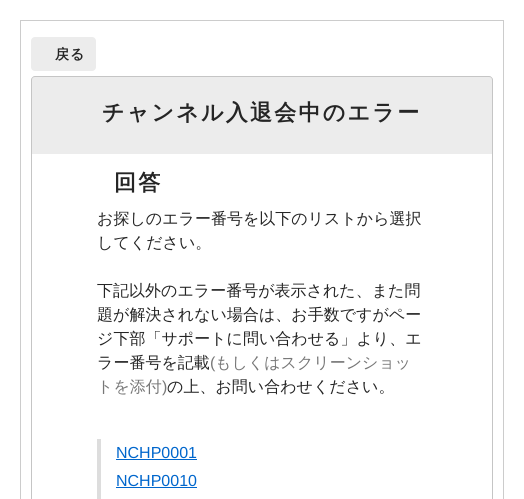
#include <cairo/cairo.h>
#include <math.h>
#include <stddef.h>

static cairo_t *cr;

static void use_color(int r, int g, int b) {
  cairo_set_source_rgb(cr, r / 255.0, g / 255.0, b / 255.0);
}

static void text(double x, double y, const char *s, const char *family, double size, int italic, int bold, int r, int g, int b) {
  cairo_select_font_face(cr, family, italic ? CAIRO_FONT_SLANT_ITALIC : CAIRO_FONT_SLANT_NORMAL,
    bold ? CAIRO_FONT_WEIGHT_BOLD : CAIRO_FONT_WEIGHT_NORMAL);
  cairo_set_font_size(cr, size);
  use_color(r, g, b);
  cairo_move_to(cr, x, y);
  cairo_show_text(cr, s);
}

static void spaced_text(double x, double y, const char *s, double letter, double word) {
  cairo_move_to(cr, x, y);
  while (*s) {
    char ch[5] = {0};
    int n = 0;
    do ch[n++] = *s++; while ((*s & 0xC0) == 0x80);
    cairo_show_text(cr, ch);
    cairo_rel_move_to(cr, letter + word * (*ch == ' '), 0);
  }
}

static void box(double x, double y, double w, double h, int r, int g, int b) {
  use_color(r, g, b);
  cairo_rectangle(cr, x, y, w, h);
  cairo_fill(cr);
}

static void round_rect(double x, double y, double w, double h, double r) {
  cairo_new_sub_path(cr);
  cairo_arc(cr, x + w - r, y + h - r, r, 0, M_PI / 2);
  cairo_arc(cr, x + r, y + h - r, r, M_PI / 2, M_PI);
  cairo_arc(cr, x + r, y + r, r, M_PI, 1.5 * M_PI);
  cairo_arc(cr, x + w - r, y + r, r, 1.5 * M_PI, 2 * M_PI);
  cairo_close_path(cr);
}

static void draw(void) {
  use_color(255, 255, 255);
  cairo_paint(cr);
  cairo_rectangle(cr, 20.5, 20.5, 483, 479);
  use_color(204, 204, 204);
  cairo_set_line_width(cr, 1);
  cairo_stroke(cr);
  use_color(236, 236, 236);
  round_rect(31, 37, 65, 34, 4);
  cairo_fill(cr);
  cairo_new_path(cr);
  cairo_move_to(cr, 35, 76);
  cairo_line_to(cr, 489, 76);
  cairo_curve_to(cr, 491, 76, 493, 78, 493, 80);
  cairo_line_to(cr, 493, 154);
  cairo_line_to(cr, 31, 154);
  cairo_line_to(cr, 31, 80);
  cairo_curve_to(cr, 31, 78, 33, 76, 35, 76);
  cairo_close_path(cr);
  cairo_fill(cr);
  use_color(197, 197, 197);
  cairo_set_fill_rule(cr, CAIRO_FILL_RULE_EVEN_ODD);
  cairo_new_path(cr);
  cairo_move_to(cr, 35, 76);
  cairo_line_to(cr, 489, 76);
  cairo_curve_to(cr, 491, 76, 493, 78, 493, 80);
  cairo_line_to(cr, 493, 154);
  cairo_line_to(cr, 31, 154);
  cairo_line_to(cr, 31, 80);
  cairo_curve_to(cr, 31, 78, 33, 76, 35, 76);
  cairo_close_path(cr);
  cairo_move_to(cr, 35, 77);
  cairo_line_to(cr, 489, 77);
  cairo_curve_to(cr, 491, 77, 492, 78, 492, 80);
  cairo_line_to(cr, 492, 154);
  cairo_line_to(cr, 32, 154);
  cairo_line_to(cr, 32, 80);
  cairo_curve_to(cr, 32, 78, 33, 77, 35, 77);
  cairo_close_path(cr);
  cairo_fill(cr);
  box(492, 154, 1, 345, 197, 197, 197);
  box(31, 154, 1, 345, 197, 197, 197);
  box(97, 439, 4, 60, 221, 221, 221);
  box(116, 459, 81, 1, 0, 102, 204);
  box(116, 487, 81, 1, 0, 102, 204);
  cairo_select_font_face(cr, "WenQuanYi Zen Hei", CAIRO_FONT_SLANT_NORMAL, CAIRO_FONT_WEIGHT_BOLD);
  cairo_set_font_size(cr, 14);
  use_color(37, 37, 37);
  spaced_text(55, 59, "戻る", 1, 0);
  cairo_set_font_size(cr, 22);
  spaced_text(102, 120, "チャンネル入退会中のエラー", 2.25, 0);
  spaced_text(114, 190, "回答", 2.25, 0);
  text(97, 224, "お探しのエラー番号を以下のリストから選択", "WenQuanYi Zen Hei Medium", 16, 0, 0, 37, 37, 37);
  text(97, 248, "してください。", "WenQuanYi Zen Hei Medium", 16, 0, 0, 37, 37, 37);
  text(97, 296, "下記以外のエラー番号が表示された、また問", "WenQuanYi Zen Hei Medium", 16, 0, 0, 37, 37, 37);
  text(97, 320, "題が解決されない場合は、お手数ですがペー", "WenQuanYi Zen Hei Medium", 16, 0, 0, 37, 37, 37);
  text(97, 344, "ジ下部「サポートに問い合わせる」より、エ", "WenQuanYi Zen Hei Medium", 16, 0, 0, 37, 37, 37);
  text(97, 368, "ラー番号を記載", "WenQuanYi Zen Hei Medium", 16, 0, 0, 37, 37, 37);
  text(210, 368, "(", "Liberation Sans", 16, 0, 0, 119, 119, 119);
  text(215, 368, "もしくはスクリーンショッ", "WenQuanYi Zen Hei Medium", 16, 0, 0, 119, 119, 119);
  text(97, 392, "トを添付", "WenQuanYi Zen Hei Medium", 16, 0, 0, 119, 119, 119);
  text(162, 392, ")", "Liberation Sans", 16, 0, 0, 119, 119, 119);
  text(167, 392, "の上、お問い合わせください。", "WenQuanYi Zen Hei Medium", 16, 0, 0, 37, 37, 37);
  text(116, 458, "NCHP0001", "Liberation Sans", 16, 0, 0, 0, 102, 204);
  text(116, 486, "NCHP0010", "Liberation Sans", 16, 0, 0, 0, 102, 204);
}

int main(void) {
  cairo_surface_t *surface = cairo_image_surface_create(CAIRO_FORMAT_RGB24, 524, 499);
  cr = cairo_create(surface);
  cairo_font_options_t *options = cairo_font_options_create();
  cairo_font_options_set_hint_metrics(options, CAIRO_HINT_METRICS_OFF);
  cairo_font_options_set_hint_style(options, CAIRO_HINT_STYLE_NONE);
  cairo_set_font_options(cr, options);
  cairo_set_miter_limit(cr, 4);
  draw();
  cairo_surface_write_to_png(surface, "out.png");
  cairo_font_options_destroy(options);
  cairo_destroy(cr);
  cairo_surface_destroy(surface);
  return 0;
}
